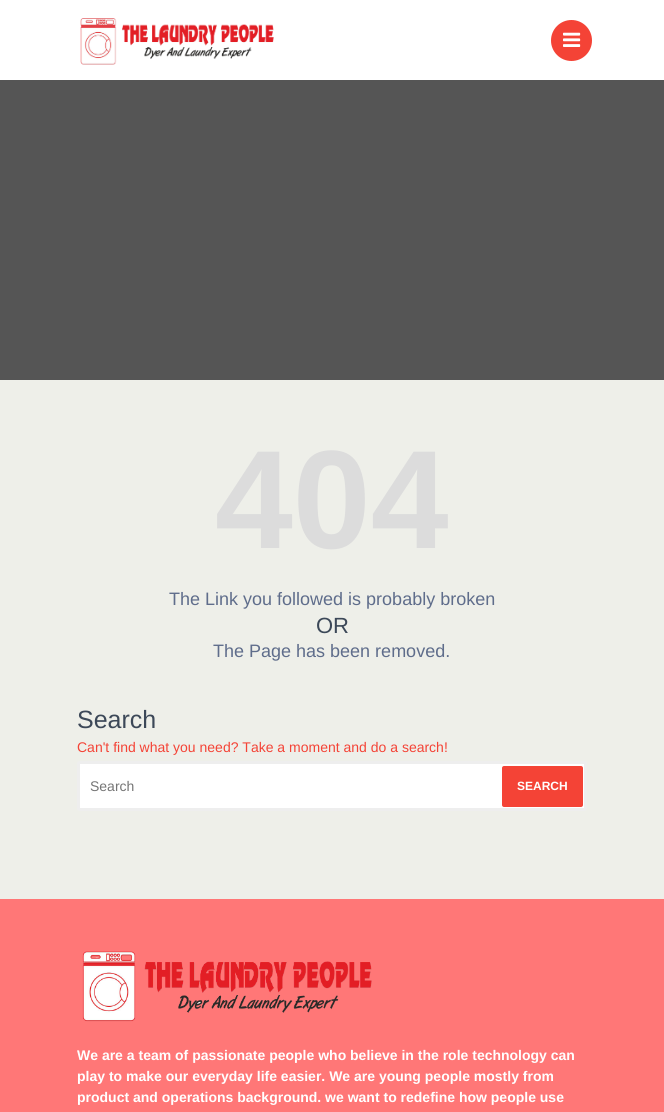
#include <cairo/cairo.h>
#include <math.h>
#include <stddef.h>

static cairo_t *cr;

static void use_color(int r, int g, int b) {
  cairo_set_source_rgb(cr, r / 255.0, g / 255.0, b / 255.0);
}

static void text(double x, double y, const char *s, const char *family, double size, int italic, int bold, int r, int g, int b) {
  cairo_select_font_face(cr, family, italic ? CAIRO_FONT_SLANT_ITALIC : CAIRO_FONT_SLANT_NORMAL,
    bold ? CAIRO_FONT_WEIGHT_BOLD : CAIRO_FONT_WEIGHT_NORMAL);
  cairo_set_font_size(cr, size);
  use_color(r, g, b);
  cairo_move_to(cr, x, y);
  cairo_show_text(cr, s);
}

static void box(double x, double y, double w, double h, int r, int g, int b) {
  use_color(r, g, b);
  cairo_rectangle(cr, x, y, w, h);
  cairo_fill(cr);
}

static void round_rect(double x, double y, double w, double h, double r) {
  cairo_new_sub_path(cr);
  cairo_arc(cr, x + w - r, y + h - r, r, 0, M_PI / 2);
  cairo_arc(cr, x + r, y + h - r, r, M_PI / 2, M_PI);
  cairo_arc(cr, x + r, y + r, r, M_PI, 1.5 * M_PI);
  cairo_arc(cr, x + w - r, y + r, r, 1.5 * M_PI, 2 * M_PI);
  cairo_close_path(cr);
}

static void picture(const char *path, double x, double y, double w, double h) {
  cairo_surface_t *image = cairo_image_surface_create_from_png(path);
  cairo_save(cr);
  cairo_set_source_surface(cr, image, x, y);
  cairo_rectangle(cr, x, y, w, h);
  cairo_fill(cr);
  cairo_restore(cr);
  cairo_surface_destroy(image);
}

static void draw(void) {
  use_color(238, 239, 233);
  cairo_paint(cr);
  box(0, 0, 664, 80, 255, 255, 255);
  picture("img_01.png", 80, 18, 194, 47);
  use_color(244, 67, 54);
  cairo_arc(cr, 571.5, 40.5, 20.5, 0, 2 * M_PI);
  cairo_fill(cr);
  picture("img_02.png", 563, 32, 18, 15);
  box(0, 80, 664, 300, 85, 85, 85);
  use_color(255, 255, 255);
  round_rect(78.5, 762.5, 507, 47, 1.5);
  cairo_fill_preserve(cr);
  use_color(238, 238, 238);
  cairo_set_line_width(cr, 3);
  cairo_stroke(cr);
  use_color(244, 67, 54);
  round_rect(502, 766, 81, 41, 2);
  cairo_fill(cr);
  box(0, 899, 664, 213, 255, 119, 119);
  picture("img_03.png", 82, 951, 290, 71);
  text(215, 548, "404", "Liberation Sans", 140, 0, 1, 220, 220, 220);
  text(169, 605, "The Link you followed is probably broken", "Liberation Sans", 18, 0, 0, 95, 109, 139);
  text(316, 633, "OR", "Liberation Sans", 22, 0, 0, 60, 72, 88);
  text(213, 657, "The Page has been removed.", "Liberation Sans", 18, 0, 0, 95, 109, 139);
  text(77, 728, "Search", "Liberation Sans", 25, 0, 0, 60, 72, 88);
  text(77, 752, "Can't find what you need? Take a moment and do a search!", "Liberation Sans", 14, 0, 0, 244, 67, 54);
  text(90, 791, "Search", "Liberation Sans", 14, 0, 0, 117, 117, 117);
  text(517, 790, "SEARCH", "Liberation Sans", 12, 0, 1, 255, 255, 255);
  text(77, 1060, "We are a team of passionate people who believe in the role technology can", "Liberation Sans", 14, 0, 1, 255, 255, 255);
  text(77, 1081, "play to make our everyday life easier. We are young people mostly from", "Liberation Sans", 14, 0, 1, 255, 255, 255);
  text(77, 1102, "product and operations background. we want to redefine how people use", "Liberation Sans", 14, 0, 1, 255, 255, 255);
}

int main(void) {
  cairo_surface_t *surface = cairo_image_surface_create(CAIRO_FORMAT_RGB24, 664, 1112);
  cr = cairo_create(surface);
  cairo_font_options_t *options = cairo_font_options_create();
  cairo_font_options_set_hint_metrics(options, CAIRO_HINT_METRICS_OFF);
  cairo_font_options_set_hint_style(options, CAIRO_HINT_STYLE_NONE);
  cairo_set_font_options(cr, options);
  cairo_set_miter_limit(cr, 4);
  draw();
  cairo_surface_write_to_png(surface, "out.png");
  cairo_font_options_destroy(options);
  cairo_destroy(cr);
  cairo_surface_destroy(surface);
  return 0;
}
